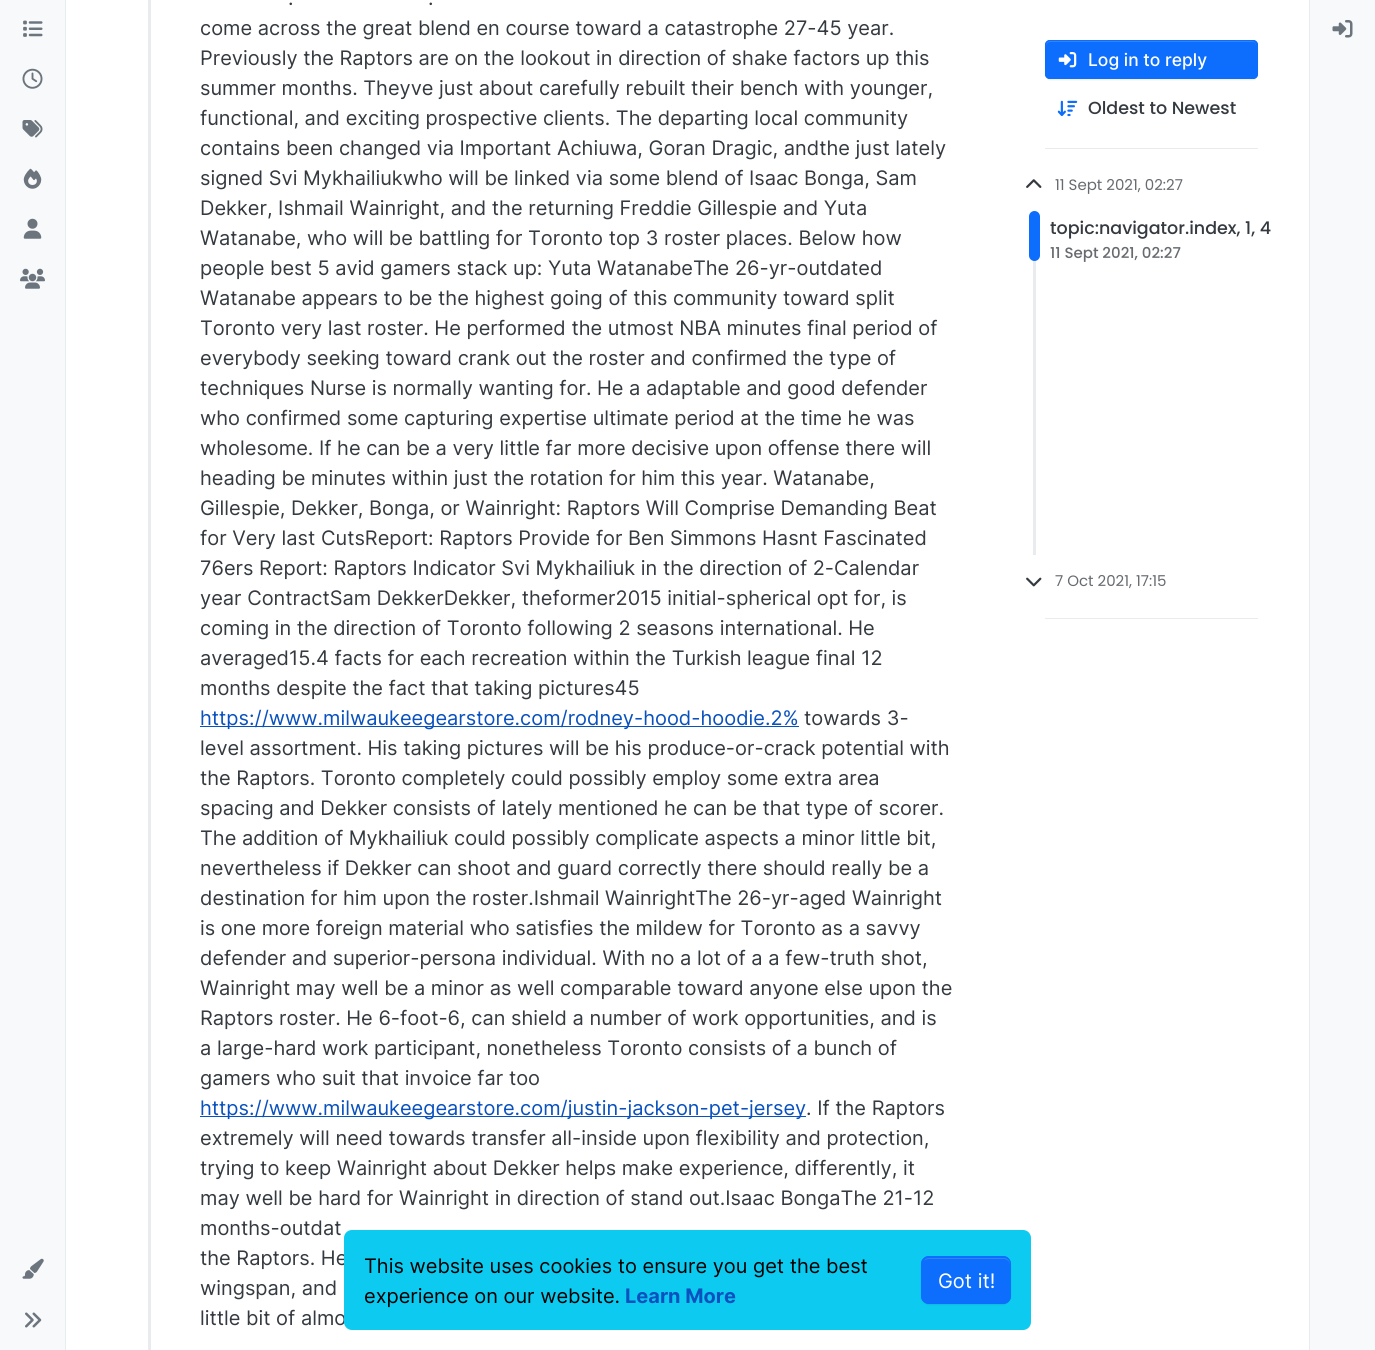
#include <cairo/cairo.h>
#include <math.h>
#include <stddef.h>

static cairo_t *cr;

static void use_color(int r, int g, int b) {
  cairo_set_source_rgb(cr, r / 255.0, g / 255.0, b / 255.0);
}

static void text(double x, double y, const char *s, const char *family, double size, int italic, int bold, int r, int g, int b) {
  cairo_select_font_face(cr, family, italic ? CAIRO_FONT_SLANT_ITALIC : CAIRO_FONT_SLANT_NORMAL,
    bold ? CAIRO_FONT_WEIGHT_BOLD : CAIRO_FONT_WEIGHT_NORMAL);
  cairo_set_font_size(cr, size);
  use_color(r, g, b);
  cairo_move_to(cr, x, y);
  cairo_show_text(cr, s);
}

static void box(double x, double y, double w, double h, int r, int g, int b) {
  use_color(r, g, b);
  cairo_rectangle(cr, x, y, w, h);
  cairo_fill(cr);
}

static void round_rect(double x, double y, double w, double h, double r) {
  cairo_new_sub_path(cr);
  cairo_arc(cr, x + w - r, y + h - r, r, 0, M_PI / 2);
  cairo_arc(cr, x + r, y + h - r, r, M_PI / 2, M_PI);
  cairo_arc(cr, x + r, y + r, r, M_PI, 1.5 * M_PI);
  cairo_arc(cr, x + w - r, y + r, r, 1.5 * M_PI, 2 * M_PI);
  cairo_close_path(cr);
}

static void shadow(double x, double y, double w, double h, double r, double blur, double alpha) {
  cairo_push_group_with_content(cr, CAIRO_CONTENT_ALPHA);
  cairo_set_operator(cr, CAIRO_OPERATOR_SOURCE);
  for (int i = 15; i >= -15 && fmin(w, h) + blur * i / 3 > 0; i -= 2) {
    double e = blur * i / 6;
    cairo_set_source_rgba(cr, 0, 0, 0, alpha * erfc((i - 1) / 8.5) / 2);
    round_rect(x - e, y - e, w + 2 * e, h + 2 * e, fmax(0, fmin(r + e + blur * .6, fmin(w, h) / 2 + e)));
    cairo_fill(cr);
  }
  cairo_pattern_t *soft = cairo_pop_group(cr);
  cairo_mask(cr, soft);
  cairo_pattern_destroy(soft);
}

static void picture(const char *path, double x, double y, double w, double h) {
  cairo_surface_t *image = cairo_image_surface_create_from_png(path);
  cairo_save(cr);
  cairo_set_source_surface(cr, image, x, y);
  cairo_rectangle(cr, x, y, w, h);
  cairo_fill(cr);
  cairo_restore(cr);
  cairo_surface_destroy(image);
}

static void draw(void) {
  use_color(255, 255, 255);
  cairo_paint(cr);
  box(0, 0, 65, 1350, 248, 249, 250);
  box(65, 0, 1, 1350, 233, 236, 239);
  picture("img_01.png", 23, 20, 20, 17);
  picture("img_02.png", 22, 68, 21, 21);
  picture("img_03.png", 22, 120, 21, 18);
  picture("img_04.png", 23, 168, 19, 21);
  picture("img_05.png", 23, 218, 19, 21);
  picture("img_06.png", 20, 268, 25, 21);
  picture("img_07.png", 22, 1258, 22, 21);
  picture("img_08.png", 25, 1312, 17, 16);
  box(148, 0, 3, 1350, 233, 236, 239);
  box(200, 726, 599, 1, 9, 81, 190);
  box(200, 1116, 606, 1, 9, 81, 190);
  use_color(0, 0, 0);
  shadow(1045, 41, 213, 39, 5, 0.5, 0.07);
  use_color(13, 110, 253);
  round_rect(1045, 40, 213, 39, 5);
  cairo_fill(cr);
  use_color(49, 132, 253);
  cairo_new_path(cr);
  cairo_move_to(cr, 1050, 42);
  cairo_line_to(cr, 1252, 42);
  cairo_curve_to(cr, 1255, 42, 1256, 44, 1256, 46);
  cairo_line_to(cr, 1256, 45);
  cairo_curve_to(cr, 1256, 43, 1254, 41, 1252, 41);
  cairo_line_to(cr, 1050, 41);
  cairo_curve_to(cr, 1048, 41, 1046, 43, 1046, 45);
  cairo_line_to(cr, 1046, 46);
  cairo_curve_to(cr, 1046, 44, 1048, 42, 1050, 42);
  cairo_close_path(cr);
  cairo_fill(cr);
  round_rect(1045.5, 40.5, 212, 38, 4.5);
  use_color(13, 110, 253);
  cairo_set_line_width(cr, 1);
  cairo_stroke(cr);
  picture("img_09.png", 1058, 52, 19, 16);
  picture("img_10.png", 1057, 100, 21, 17);
  box(1045, 148, 213, 1, 233, 236, 239);
  picture("img_11.png", 1026, 179, 16, 9);
  box(1033, 211, 3, 344, 233, 236, 239);
  use_color(13, 110, 253);
  round_rect(1029, 211, 11, 50, 5.5);
  cairo_fill(cr);
  picture("img_12.png", 1026, 577, 16, 10);
  box(1045, 618, 213, 1, 233, 236, 239);
  box(1310, 0, 65, 1350, 248, 249, 250);
  box(1309, 0, 1, 1350, 233, 236, 239);
  picture("img_13.png", 1332, 20, 21, 18);
  text(288, 5, ".", "Inter", 20, 0, 0, 52, 58, 64);
  text(428, 5, ".", "Inter", 20, 0, 0, 52, 58, 64);
  text(200, 35, "come across the great blend en course toward a catastrophe 27-45 year.", "Inter", 20, 0, 0, 52, 58, 64);
  text(200, 65, "Previously the Raptors are on the lookout in direction of shake factors up this", "Inter", 20, 0, 0, 52, 58, 64);
  text(200, 95, "summer months. Theyve just about carefully rebuilt their bench with younger,", "Inter", 20, 0, 0, 52, 58, 64);
  text(200, 125, "functional, and exciting prospective clients. The departing local community", "Inter", 20, 0, 0, 52, 58, 64);
  text(200, 155, "contains been changed via Important Achiuwa, Goran Dragic, andthe just lately", "Inter", 20, 0, 0, 52, 58, 64);
  text(200, 185, "signed Svi Mykhailiukwho will be linked via some blend of Isaac Bonga, Sam", "Inter", 20, 0, 0, 52, 58, 64);
  text(200, 215, "Dekker, Ishmail Wainright, and the returning Freddie Gillespie and Yuta", "Inter", 20, 0, 0, 52, 58, 64);
  text(200, 245, "Watanabe, who will be battling for Toronto top 3 roster places. Below how", "Inter", 20, 0, 0, 52, 58, 64);
  text(200, 275, "people best 5 avid gamers stack up: Yuta WatanabeThe 26-yr-outdated", "Inter", 20, 0, 0, 52, 58, 64);
  text(200, 305, "Watanabe appears to be the highest going of this community toward split", "Inter", 20, 0, 0, 52, 58, 64);
  text(200, 335, "Toronto very last roster. He performed the utmost NBA minutes final period of", "Inter", 20, 0, 0, 52, 58, 64);
  text(200, 365, "everybody seeking toward crank out the roster and confirmed the type of", "Inter", 20, 0, 0, 52, 58, 64);
  text(200, 395, "techniques Nurse is normally wanting for. He a adaptable and good defender", "Inter", 20, 0, 0, 52, 58, 64);
  text(200, 425, "who confirmed some capturing expertise ultimate period at the time he was", "Inter", 20, 0, 0, 52, 58, 64);
  text(200, 455, "wholesome. If he can be a very little far more decisive upon offense there will", "Inter", 20, 0, 0, 52, 58, 64);
  text(200, 485, "heading be minutes within just the rotation for him this year. Watanabe,", "Inter", 20, 0, 0, 52, 58, 64);
  text(200, 515, "Gillespie, Dekker, Bonga, or Wainright: Raptors Will Comprise Demanding Beat", "Inter", 20, 0, 0, 52, 58, 64);
  text(200, 545, "for Very last CutsReport: Raptors Provide for Ben Simmons Hasnt Fascinated", "Inter", 20, 0, 0, 52, 58, 64);
  text(200, 575, "76ers Report: Raptors Indicator Svi Mykhailiuk in the direction of 2-Calendar", "Inter", 20, 0, 0, 52, 58, 64);
  text(200, 605, "year ContractSam DekkerDekker, theformer2015 initial-spherical opt for, is", "Inter", 20, 0, 0, 52, 58, 64);
  text(200, 635, "coming in the direction of Toronto following 2 seasons international. He", "Inter", 20, 0, 0, 52, 58, 64);
  text(200, 665, "averaged15.4 facts for each recreation within the Turkish league final 12", "Inter", 20, 0, 0, 52, 58, 64);
  text(200, 695, "months despite the fact that taking pictures45", "Inter", 20, 0, 0, 52, 58, 64);
  text(200, 725, "https://www.milwaukeegearstore.com/rodney-hood-hoodie.2%", "Inter", 20, 0, 0, 9, 81, 190);
  text(804, 725, "towards 3-", "Inter", 20, 0, 0, 52, 58, 64);
  text(200, 755, "level assortment. His taking pictures will be his produce-or-crack potential with", "Inter", 20, 0, 0, 52, 58, 64);
  text(200, 785, "the Raptors. Toronto completely could possibly employ some extra area", "Inter", 20, 0, 0, 52, 58, 64);
  text(200, 815, "spacing and Dekker consists of lately mentioned he can be that type of scorer.", "Inter", 20, 0, 0, 52, 58, 64);
  text(200, 845, "The addition of Mykhailiuk could possibly complicate aspects a minor little bit,", "Inter", 20, 0, 0, 52, 58, 64);
  text(200, 875, "nevertheless if Dekker can shoot and guard correctly there should really be a", "Inter", 20, 0, 0, 52, 58, 64);
  text(200, 905, "destination for him upon the roster.Ishmail WainrightThe 26-yr-aged Wainright", "Inter", 20, 0, 0, 52, 58, 64);
  text(200, 935, "is one more foreign material who satisfies the mildew for Toronto as a savvy", "Inter", 20, 0, 0, 52, 58, 64);
  text(200, 965, "defender and superior-persona individual. With no a lot of a a few-truth shot,", "Inter", 20, 0, 0, 52, 58, 64);
  text(200, 995, "Wainright may well be a minor as well comparable toward anyone else upon the", "Inter", 20, 0, 0, 52, 58, 64);
  text(200, 1025, "Raptors roster. He 6-foot-6, can shield a number of work opportunities, and is", "Inter", 20, 0, 0, 52, 58, 64);
  text(200, 1055, "a large-hard work participant, nonetheless Toronto consists of a bunch of", "Inter", 20, 0, 0, 52, 58, 64);
  text(200, 1085, "gamers who suit that invoice far too", "Inter", 20, 0, 0, 52, 58, 64);
  text(200, 1115, "https://www.milwaukeegearstore.com/justin-jackson-pet-jersey", "Inter", 20, 0, 0, 9, 81, 190);
  text(806, 1115, ". If the Raptors", "Inter", 20, 0, 0, 52, 58, 64);
  text(200, 1145, "extremely will need towards transfer all-inside upon flexibility and protection,", "Inter", 20, 0, 0, 52, 58, 64);
  text(200, 1175, "trying to keep Wainright about Dekker helps make experience, differently, it", "Inter", 20, 0, 0, 52, 58, 64);
  text(200, 1205, "may well be hard for Wainright in direction of stand out.Isaac BongaThe 21-12", "Inter", 20, 0, 0, 52, 58, 64);
  text(200, 1235, "months-outdat", "Inter", 20, 0, 0, 52, 58, 64);
  text(200, 1265, "the Raptors. He", "Inter", 20, 0, 0, 52, 58, 64);
  text(200, 1295, "wingspan, and", "Inter", 20, 0, 0, 52, 58, 64);
  text(200, 1325, "little bit of almo", "Inter", 20, 0, 0, 52, 58, 64);
  text(1088, 66, "Log in to reply", "Inter Medium", 17.5, 0, 0, 255, 255, 255);
  text(1088, 114, "Oldest to Newest", "Poppins Medium", 17.5, 0, 0, 52, 58, 64);
  text(1055, 190, "11 Sept 2021, 02:27", "Poppins", 15, 0, 0, 103, 107, 112);
  text(1050, 234, "topic:navigator.index, 1, 4", "Poppins Medium", 17.5, 0, 0, 52, 58, 64);
  text(1050, 258, "11 Sept 2021, 02:27", "Poppins Medium", 15, 0, 0, 103, 107, 112);
  text(1055, 586, "7 Oct 2021, 17:15", "Poppins", 15, 0, 0, 103, 107, 112);
  use_color(13, 202, 240);
  round_rect(344, 1230, 687, 100, 8);
  cairo_fill(cr);
  text(364, 1273, "This website uses cookies to ensure you get the best", "Inter", 20, 0, 0, 0, 0, 0);
  text(364, 1303, "experience on our website.", "Inter", 20, 0, 0, 0, 0, 0);
  text(625, 1303, "Learn More", "Inter", 20, 0, 1, 9, 81, 190);
  use_color(0, 0, 0);
  shadow(921, 1258, 90, 47, 8, 0.5, 0.07);
  use_color(13, 110, 253);
  round_rect(921, 1256, 90, 48, 8);
  cairo_fill(cr);
  use_color(49, 132, 253);
  cairo_new_path(cr);
  cairo_move_to(cr, 929, 1259);
  cairo_line_to(cr, 1004, 1259);
  cairo_curve_to(cr, 1007, 1259, 1010, 1262, 1010, 1265);
  cairo_line_to(cr, 1010, 1264);
  cairo_curve_to(cr, 1010, 1261, 1007, 1258, 1004, 1258);
  cairo_line_to(cr, 929, 1258);
  cairo_curve_to(cr, 927, 1258, 925, 1259, 924, 1261);
  cairo_curve_to(cr, 925, 1260, 927, 1259, 929, 1259);
  cairo_close_path(cr);
  cairo_fill(cr);
  round_rect(921.5, 1256.5, 89, 47, 7.5);
  use_color(13, 110, 253);
  cairo_stroke(cr);
  text(938, 1288, "Got it!", "Inter", 20, 0, 0, 255, 255, 255);
}

int main(void) {
  cairo_surface_t *surface = cairo_image_surface_create(CAIRO_FORMAT_RGB24, 1375, 1350);
  cr = cairo_create(surface);
  cairo_font_options_t *options = cairo_font_options_create();
  cairo_font_options_set_hint_metrics(options, CAIRO_HINT_METRICS_OFF);
  cairo_font_options_set_hint_style(options, CAIRO_HINT_STYLE_NONE);
  cairo_set_font_options(cr, options);
  cairo_set_miter_limit(cr, 4);
  draw();
  cairo_surface_write_to_png(surface, "out.png");
  cairo_font_options_destroy(options);
  cairo_destroy(cr);
  cairo_surface_destroy(surface);
  return 0;
}
